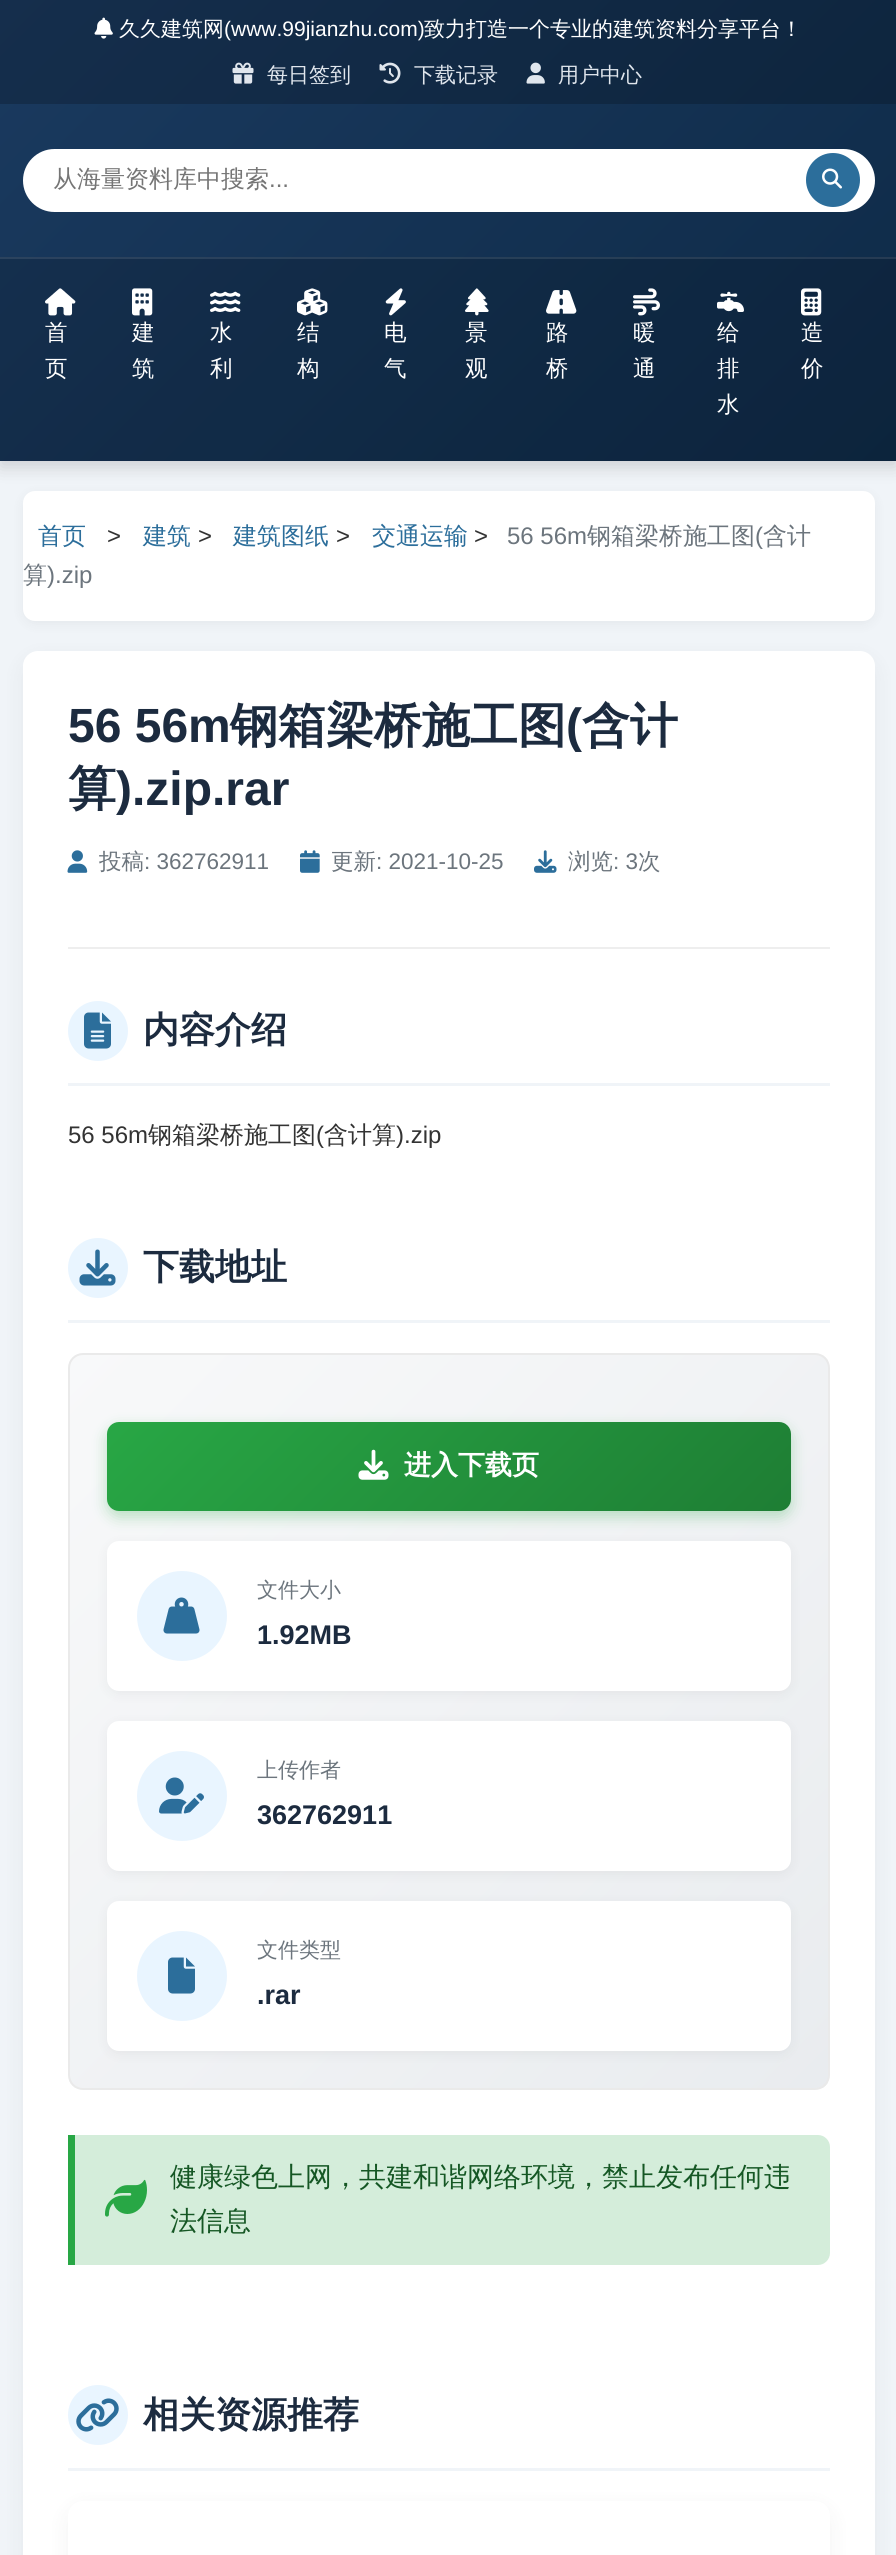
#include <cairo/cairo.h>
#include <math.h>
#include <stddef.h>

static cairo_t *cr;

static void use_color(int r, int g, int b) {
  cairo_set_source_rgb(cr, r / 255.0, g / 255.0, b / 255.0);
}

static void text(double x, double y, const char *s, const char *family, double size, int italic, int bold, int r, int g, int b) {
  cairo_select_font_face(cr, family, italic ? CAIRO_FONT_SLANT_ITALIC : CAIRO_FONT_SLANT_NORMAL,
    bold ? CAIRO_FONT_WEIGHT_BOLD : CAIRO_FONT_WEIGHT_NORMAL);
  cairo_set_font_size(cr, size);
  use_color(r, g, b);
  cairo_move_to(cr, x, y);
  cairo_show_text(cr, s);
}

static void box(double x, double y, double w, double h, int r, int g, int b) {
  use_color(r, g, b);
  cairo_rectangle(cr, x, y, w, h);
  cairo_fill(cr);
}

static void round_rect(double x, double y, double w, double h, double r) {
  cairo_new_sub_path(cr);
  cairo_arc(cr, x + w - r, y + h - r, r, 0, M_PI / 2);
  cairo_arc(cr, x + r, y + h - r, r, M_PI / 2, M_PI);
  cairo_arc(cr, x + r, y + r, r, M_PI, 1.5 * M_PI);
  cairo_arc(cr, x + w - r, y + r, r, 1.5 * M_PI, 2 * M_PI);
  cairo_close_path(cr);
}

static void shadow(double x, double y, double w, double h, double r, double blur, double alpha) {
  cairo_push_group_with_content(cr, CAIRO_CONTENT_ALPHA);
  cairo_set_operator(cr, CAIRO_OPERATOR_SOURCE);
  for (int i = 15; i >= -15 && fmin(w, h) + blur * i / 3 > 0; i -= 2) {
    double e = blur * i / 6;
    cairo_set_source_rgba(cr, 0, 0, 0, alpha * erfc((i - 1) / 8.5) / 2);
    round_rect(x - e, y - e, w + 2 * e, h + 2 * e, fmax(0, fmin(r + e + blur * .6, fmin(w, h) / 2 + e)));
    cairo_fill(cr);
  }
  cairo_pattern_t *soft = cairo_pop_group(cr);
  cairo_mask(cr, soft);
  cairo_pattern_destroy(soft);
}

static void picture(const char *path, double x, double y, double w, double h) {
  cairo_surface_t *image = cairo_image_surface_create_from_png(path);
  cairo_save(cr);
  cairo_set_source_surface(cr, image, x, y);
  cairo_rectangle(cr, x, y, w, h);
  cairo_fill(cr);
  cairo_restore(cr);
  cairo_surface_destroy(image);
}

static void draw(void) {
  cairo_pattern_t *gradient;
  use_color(240, 244, 248);
  cairo_paint(cr);
  use_color(0, 0, 0);
  shadow(0, 6, 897, 461, 0, 9, 0.15);
  gradient = cairo_pattern_create_linear(109, -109, 788, 570);
  cairo_pattern_add_color_stop_rgba(gradient, 0, 0.102, 0.227, 0.373, 1);
  cairo_pattern_add_color_stop_rgba(gradient, 1, 0.055, 0.165, 0.278, 1);
  cairo_set_source(cr, gradient);
  cairo_pattern_destroy(gradient);
  cairo_rectangle(cr, 0, 104, 896, 357);
  cairo_fill(cr);
  gradient = cairo_pattern_create_linear(109, -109, 788, 570);
  cairo_pattern_add_color_stop_rgba(gradient, 0, 0.082, 0.18, 0.298, 1);
  cairo_pattern_add_color_stop_rgba(gradient, 1, 0.043, 0.133, 0.224, 1);
  cairo_set_source(cr, gradient);
  cairo_pattern_destroy(gradient);
  cairo_rectangle(cr, 0, 0, 896, 104);
  cairo_fill(cr);
  picture("img_01.png", 94, 17, 19, 22);
  picture("img_02.png", 232, 62, 22, 22);
  picture("img_03.png", 379, 62, 22, 22);
  picture("img_04.png", 526, 62, 19, 22);
  use_color(255, 255, 255);
  round_rect(23, 149, 852, 63, 31.5);
  cairo_fill(cr);
  use_color(44, 110, 155);
  cairo_arc(cr, 833, 180, 27, 0, 2 * M_PI);
  cairo_fill(cr);
  picture("img_05.png", 822, 168, 20, 21);
  cairo_set_source_rgba(cr, 0, 0, 0, 0.15);
  cairo_rectangle(cr, 0, 257, 896, 204);
  cairo_fill(cr);
  cairo_set_source_rgba(cr, 1, 1, 1, 0.1);
  cairo_rectangle(cr, 0, 257, 896, 2);
  cairo_fill(cr);
  picture("img_06.png", 45, 288, 31, 28);
  picture("img_07.png", 132, 288, 21, 28);
  picture("img_08.png", 210, 291, 31, 21);
  picture("img_09.png", 297, 288, 31, 28);
  picture("img_10.png", 385, 288, 21, 28);
  picture("img_11.png", 465, 288, 24, 28);
  picture("img_12.png", 546, 290, 31, 24);
  picture("img_13.png", 633, 288, 27, 28);
  picture("img_14.png", 717, 291, 27, 21);
  picture("img_15.png", 801, 288, 21, 28);
  use_color(0, 0, 0);
  shadow(23, 494, 852, 130, 12, 6, 0.05);
  use_color(255, 255, 255);
  round_rect(23, 491, 852, 130, 12);
  cairo_fill(cr);
  use_color(0, 0, 0);
  shadow(23, 659, 852, 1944, 15, 11, 0.05);
  use_color(255, 255, 255);
  round_rect(23, 651, 852, 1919, 15);
  cairo_fill(cr);
  box(68, 947, 762, 2, 238, 238, 238);
  picture("img_16.png", 67, 850, 21, 23);
  picture("img_17.png", 300, 850, 20, 23);
  picture("img_18.png", 534, 850, 23, 23);
  box(68, 1083, 762, 3, 240, 244, 248);
  use_color(233, 245, 255);
  cairo_arc(cr, 98, 1031, 30, 0, 2 * M_PI);
  cairo_fill(cr);
  picture("img_19.png", 84, 1012, 27, 37);
  box(68, 1320, 762, 3, 240, 244, 248);
  use_color(233, 245, 255);
  cairo_arc(cr, 98, 1268, 30, 0, 2 * M_PI);
  cairo_fill(cr);
  picture("img_20.png", 79, 1249, 37, 37);
  cairo_save(cr);
  round_rect(68, 1353, 762, 737, 15);
  cairo_clip(cr);
  gradient = cairo_pattern_create_linear(75, 1348, 822, 2094);
  cairo_pattern_add_color_stop_rgba(gradient, 0, 0.973, 0.976, 0.98, 1);
  cairo_pattern_add_color_stop_rgba(gradient, 1, 0.914, 0.925, 0.937, 1);
  cairo_set_source(cr, gradient);
  cairo_pattern_destroy(gradient);
  cairo_rectangle(cr, 69, 1355, 759, 733);
  cairo_fill(cr);
  cairo_restore(cr);
  round_rect(69, 1354, 760, 735, 14);
  use_color(234, 234, 234);
  cairo_stroke(cr);
  use_color(40, 167, 69);
  shadow(107, 1428, 684, 89, 12, 7.5, 0.3);
  gradient = cairo_pattern_create_linear(255, 1273, 642, 1659);
  cairo_pattern_add_color_stop_rgba(gradient, 0, 0.157, 0.655, 0.271, 1);
  cairo_pattern_add_color_stop_rgba(gradient, 1, 0.118, 0.494, 0.204, 1);
  cairo_set_source(cr, gradient);
  cairo_pattern_destroy(gradient);
  round_rect(107, 1422, 684, 89, 12);
  cairo_fill(cr);
  picture("img_21.png", 358, 1449, 31, 31);
  use_color(0, 0, 0);
  shadow(107, 1544, 684, 150, 12, 6, 0.05);
  use_color(255, 255, 255);
  round_rect(107, 1541, 684, 150, 12);
  cairo_fill(cr);
  use_color(233, 245, 255);
  cairo_arc(cr, 182, 1616, 45, 0, 2 * M_PI);
  cairo_fill(cr);
  picture("img_22.png", 163, 1597, 37, 37);
  use_color(0, 0, 0);
  shadow(107, 1724, 684, 150, 12, 6, 0.05);
  use_color(255, 255, 255);
  round_rect(107, 1721, 684, 150, 12);
  cairo_fill(cr);
  use_color(233, 245, 255);
  cairo_arc(cr, 182, 1796, 45, 0, 2 * M_PI);
  cairo_fill(cr);
  picture("img_23.png", 159, 1777, 45, 37);
  use_color(0, 0, 0);
  shadow(107, 1904, 684, 150, 12, 6, 0.05);
  use_color(255, 255, 255);
  round_rect(107, 1901, 684, 150, 12);
  cairo_fill(cr);
  use_color(233, 245, 255);
  cairo_arc(cr, 182, 1976, 45, 0, 2 * M_PI);
  cairo_fill(cr);
  picture("img_24.png", 168, 1957, 27, 37);
  use_color(212, 237, 218);
  cairo_new_path(cr);
  cairo_move_to(cr, 68, 2135);
  cairo_line_to(cr, 818, 2135);
  cairo_curve_to(cr, 824.5, 2135, 830, 2140.5, 830, 2147);
  cairo_line_to(cr, 830, 2253);
  cairo_curve_to(cr, 830, 2259.5, 824.5, 2265, 818, 2265);
  cairo_line_to(cr, 68, 2265);
  cairo_close_path(cr);
  cairo_fill(cr);
  box(68, 2135, 7, 130, 40, 167, 69);
  picture("img_25.png", 105, 2179, 42, 38);
  box(68, 2468, 762, 3, 240, 244, 248);
  use_color(233, 245, 255);
  cairo_arc(cr, 98, 2415, 30, 0, 2 * M_PI);
  cairo_fill(cr);
  picture("img_26.png", 76, 2398, 43, 34);
  use_color(0, 0, 0);
  shadow(68, 2508, 762, 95, 15, 11, 0.05);
  use_color(255, 255, 255);
  round_rect(68, 2501, 762, 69, 15);
  cairo_fill(cr);
  text(119, 36, "久久建筑网", "WenQuanYi Zen Hei Medium", 21, 0, 0, 255, 255, 255);
  text(224, 36, "(www.99jianzhu.com)", "Liberation Sans", 21, 0, 0, 255, 255, 255);
  text(424, 36, "致力打造一个专业的建筑资料分享平台！", "WenQuanYi Zen Hei Medium", 21, 0, 0, 255, 255, 255);
  text(267, 82, "每日签到", "WenQuanYi Zen Hei Medium", 21, 0, 0, 224, 230, 237);
  text(414, 82, "下载记录", "WenQuanYi Zen Hei Medium", 21, 0, 0, 224, 230, 237);
  text(558, 82, "用户中心", "WenQuanYi Zen Hei Medium", 21, 0, 0, 224, 230, 237);
  text(53, 187, "从海量资料库中搜索", "WenQuanYi Zen Hei Medium", 24, 0, 0, 117, 117, 117);
  text(269, 187, "...", "Liberation Sans", 24, 0, 0, 117, 117, 117);
  text(45, 340, "首", "WenQuanYi Zen Hei Medium", 22.5, 0, 0, 255, 255, 255);
  text(45, 376, "页", "WenQuanYi Zen Hei Medium", 22.5, 0, 0, 255, 255, 255);
  text(132, 340, "建", "WenQuanYi Zen Hei Medium", 22.5, 0, 0, 255, 255, 255);
  text(132, 376, "筑", "WenQuanYi Zen Hei Medium", 22.5, 0, 0, 255, 255, 255);
  text(210, 340, "水", "WenQuanYi Zen Hei Medium", 22.5, 0, 0, 255, 255, 255);
  text(210, 376, "利", "WenQuanYi Zen Hei Medium", 22.5, 0, 0, 255, 255, 255);
  text(297, 340, "结", "WenQuanYi Zen Hei Medium", 22.5, 0, 0, 255, 255, 255);
  text(297, 376, "构", "WenQuanYi Zen Hei Medium", 22.5, 0, 0, 255, 255, 255);
  text(384, 340, "电", "WenQuanYi Zen Hei Medium", 22.5, 0, 0, 255, 255, 255);
  text(384, 376, "气", "WenQuanYi Zen Hei Medium", 22.5, 0, 0, 255, 255, 255);
  text(465, 340, "景", "WenQuanYi Zen Hei Medium", 22.5, 0, 0, 255, 255, 255);
  text(465, 376, "观", "WenQuanYi Zen Hei Medium", 22.5, 0, 0, 255, 255, 255);
  text(546, 340, "路", "WenQuanYi Zen Hei Medium", 22.5, 0, 0, 255, 255, 255);
  text(546, 376, "桥", "WenQuanYi Zen Hei Medium", 22.5, 0, 0, 255, 255, 255);
  text(633, 340, "暖", "WenQuanYi Zen Hei Medium", 22.5, 0, 0, 255, 255, 255);
  text(633, 376, "通", "WenQuanYi Zen Hei Medium", 22.5, 0, 0, 255, 255, 255);
  text(717, 340, "给", "WenQuanYi Zen Hei Medium", 22.5, 0, 0, 255, 255, 255);
  text(717, 376, "排", "WenQuanYi Zen Hei Medium", 22.5, 0, 0, 255, 255, 255);
  text(717, 412, "水", "WenQuanYi Zen Hei Medium", 22.5, 0, 0, 255, 255, 255);
  text(801, 340, "造", "WenQuanYi Zen Hei Medium", 22.5, 0, 0, 255, 255, 255);
  text(801, 376, "价", "WenQuanYi Zen Hei Medium", 22.5, 0, 0, 255, 255, 255);
  text(38, 544, "首页", "WenQuanYi Zen Hei Medium", 24, 0, 0, 44, 110, 155);
  text(107, 544, ">", "Liberation Sans", 24, 0, 0, 51, 51, 51);
  text(143, 544, "建筑", "WenQuanYi Zen Hei Medium", 24, 0, 0, 44, 110, 155);
  text(198, 544, ">", "Liberation Sans", 24, 0, 0, 51, 51, 51);
  text(233, 544, "建筑图纸", "WenQuanYi Zen Hei Medium", 24, 0, 0, 44, 110, 155);
  text(336, 544, ">", "Liberation Sans", 24, 0, 0, 51, 51, 51);
  text(372, 544, "交通运输", "WenQuanYi Zen Hei Medium", 24, 0, 0, 44, 110, 155);
  text(474, 544, ">", "Liberation Sans", 24, 0, 0, 51, 51, 51);
  text(507, 544, "56 56m", "Liberation Sans", 24, 0, 0, 108, 117, 125);
  text(587, 544, "钢箱梁桥施工图", "WenQuanYi Zen Hei Medium", 24, 0, 0, 108, 117, 125);
  text(755, 544, "(", "Liberation Sans", 24, 0, 0, 108, 117, 125);
  text(763, 544, "含计", "WenQuanYi Zen Hei Medium", 24, 0, 0, 108, 117, 125);
  text(23, 583, "算", "WenQuanYi Zen Hei Medium", 24, 0, 0, 108, 117, 125);
  text(47, 583, ").zip", "Liberation Sans", 24, 0, 0, 108, 117, 125);
  text(68, 742, "56 56m", "Liberation Sans", 48, 0, 1, 28, 43, 63);
  text(230, 742, "钢箱梁桥施工图", "WenQuanYi Zen Hei", 48, 0, 1, 28, 43, 63);
  text(566, 742, "(", "Liberation Sans", 48, 0, 1, 28, 43, 63);
  text(582, 742, "含计", "WenQuanYi Zen Hei", 48, 0, 1, 28, 43, 63);
  text(68, 805, "算", "WenQuanYi Zen Hei", 48, 0, 1, 28, 43, 63);
  text(116, 805, ").zip.rar", "Liberation Sans", 48, 0, 1, 28, 43, 63);
  text(99, 869, "投稿", "WenQuanYi Zen Hei Medium", 22.5, 0, 0, 108, 117, 125);
  text(144, 869, ": 362762911", "Liberation Sans", 22.5, 0, 0, 108, 117, 125);
  text(331, 869, "更新", "WenQuanYi Zen Hei Medium", 22.5, 0, 0, 108, 117, 125);
  text(376, 869, ": 2021-10-25", "Liberation Sans", 22.5, 0, 0, 108, 117, 125);
  text(568, 869, "浏览", "WenQuanYi Zen Hei Medium", 22.5, 0, 0, 108, 117, 125);
  text(613, 869, ": 3", "Liberation Sans", 22.5, 0, 0, 108, 117, 125);
  text(638, 869, "次", "WenQuanYi Zen Hei Medium", 22.5, 0, 0, 108, 117, 125);
  text(143, 1042, "内容介绍", "WenQuanYi Zen Hei", 36, 0, 1, 28, 43, 63);
  text(68, 1143, "56 56m", "Liberation Sans", 24, 0, 0, 51, 51, 51);
  text(148, 1143, "钢箱梁桥施工图", "WenQuanYi Zen Hei Medium", 24, 0, 0, 51, 51, 51);
  text(316, 1143, "(", "Liberation Sans", 24, 0, 0, 51, 51, 51);
  text(324, 1143, "含计算", "WenQuanYi Zen Hei Medium", 24, 0, 0, 51, 51, 51);
  text(396, 1143, ").zip", "Liberation Sans", 24, 0, 0, 51, 51, 51);
  text(143, 1279, "下载地址", "WenQuanYi Zen Hei", 36, 0, 1, 28, 43, 63);
  text(404, 1474, "进入下载页", "WenQuanYi Zen Hei", 27, 0, 1, 255, 255, 255);
  text(257, 1597, "文件大小", "WenQuanYi Zen Hei Medium", 21, 0, 0, 108, 117, 125);
  text(257, 1644, "1.92MB", "Liberation Sans", 27, 0, 1, 28, 43, 63);
  text(257, 1777, "上传作者", "WenQuanYi Zen Hei Medium", 21, 0, 0, 108, 117, 125);
  text(257, 1824, "362762911", "Liberation Sans", 27, 0, 1, 28, 43, 63);
  text(257, 1957, "文件类型", "WenQuanYi Zen Hei Medium", 21, 0, 0, 108, 117, 125);
  text(257, 2004, ".rar", "Liberation Sans", 27, 0, 1, 28, 43, 63);
  text(170, 2186, "健康绿色上网，共建和谐网络环境，禁止发布任何违", "WenQuanYi Zen Hei Medium", 27, 0, 0, 21, 87, 36);
  text(170, 2230, "法信息", "WenQuanYi Zen Hei Medium", 27, 0, 0, 21, 87, 36);
  text(143, 2427, "相关资源推荐", "WenQuanYi Zen Hei", 36, 0, 1, 28, 43, 63);
}

int main(void) {
  cairo_surface_t *surface = cairo_image_surface_create(CAIRO_FORMAT_RGB24, 896, 2555);
  cr = cairo_create(surface);
  cairo_font_options_t *options = cairo_font_options_create();
  cairo_font_options_set_hint_metrics(options, CAIRO_HINT_METRICS_OFF);
  cairo_font_options_set_hint_style(options, CAIRO_HINT_STYLE_NONE);
  cairo_set_font_options(cr, options);
  cairo_set_miter_limit(cr, 4);
  draw();
  cairo_surface_write_to_png(surface, "out.png");
  cairo_font_options_destroy(options);
  cairo_destroy(cr);
  cairo_surface_destroy(surface);
  return 0;
}
